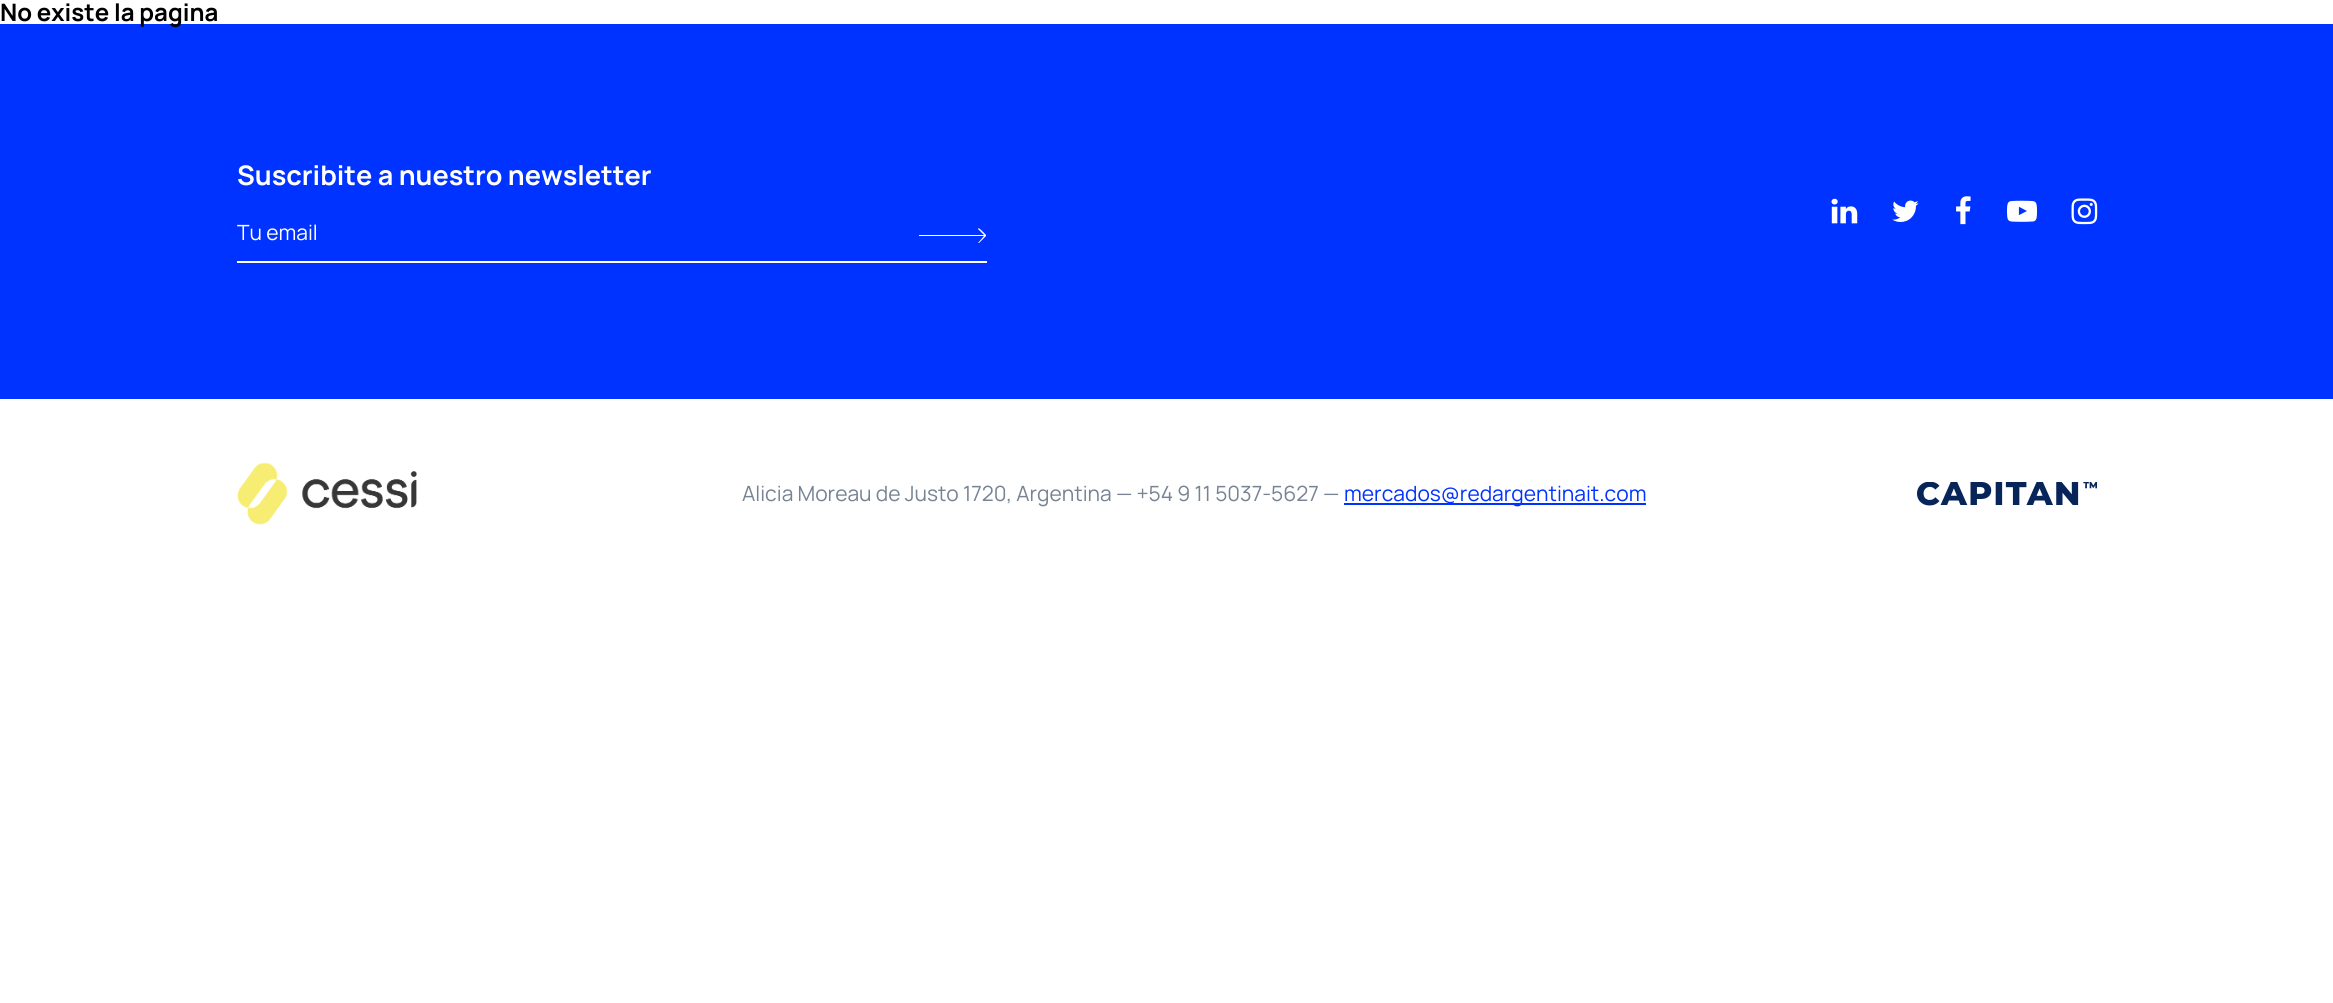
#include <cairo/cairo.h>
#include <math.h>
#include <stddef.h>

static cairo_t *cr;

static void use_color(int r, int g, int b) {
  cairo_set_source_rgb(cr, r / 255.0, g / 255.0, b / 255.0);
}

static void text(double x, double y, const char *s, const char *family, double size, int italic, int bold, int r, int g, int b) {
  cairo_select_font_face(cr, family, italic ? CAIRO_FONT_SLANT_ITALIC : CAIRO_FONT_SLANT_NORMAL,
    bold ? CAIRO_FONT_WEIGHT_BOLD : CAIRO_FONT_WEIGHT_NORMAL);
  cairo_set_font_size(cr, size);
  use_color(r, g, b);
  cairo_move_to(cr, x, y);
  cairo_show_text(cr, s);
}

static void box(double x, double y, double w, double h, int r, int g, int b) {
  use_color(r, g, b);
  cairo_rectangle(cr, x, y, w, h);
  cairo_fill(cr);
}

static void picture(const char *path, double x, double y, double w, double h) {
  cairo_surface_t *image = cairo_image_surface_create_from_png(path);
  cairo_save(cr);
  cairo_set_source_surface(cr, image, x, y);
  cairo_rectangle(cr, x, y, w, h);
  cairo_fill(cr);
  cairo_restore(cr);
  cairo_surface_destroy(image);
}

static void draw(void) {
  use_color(255, 255, 255);
  cairo_paint(cr);
  box(0, 24, 2333, 375, 0, 51, 255);
  box(237, 261, 750, 2, 255, 255, 255);
  cairo_set_fill_rule(cr, CAIRO_FILL_RULE_EVEN_ODD);
  cairo_new_path(cr);
  cairo_move_to(cr, 986, 235);
  cairo_line_to(cr, 986, 236);
  cairo_line_to(cr, 979, 243);
  cairo_line_to(cr, 978, 243);
  cairo_line_to(cr, 984, 236);
  cairo_line_to(cr, 919, 236);
  cairo_line_to(cr, 919, 235);
  cairo_line_to(cr, 984, 235);
  cairo_line_to(cr, 978, 229);
  cairo_curve_to(cr, 978, 226, 984, 233, 986, 235);
  cairo_close_path(cr);
  cairo_fill(cr);
  picture("img_01.png", 1831, 198, 27, 26);
  picture("img_02.png", 1892, 200, 27, 22);
  picture("img_03.png", 1956, 196, 15, 29);
  picture("img_04.png", 2007, 200, 30, 22);
  picture("img_05.png", 2071, 198, 27, 27);
  picture("img_06.png", 237, 462, 180, 63);
  box(1344, 503, 302, 2, 0, 51, 255);
  picture("img_07.png", 1917, 482, 180, 24);
  text(0, 21, "No existe la pagina", "Manrope", 24, 0, 1, 0, 0, 0);
  text(237, 185, "Suscribite a nuestro newsletter", "Manrope", 27, 0, 1, 255, 255, 255);
  text(237, 240, "Tu email", "Manrope", 21, 0, 0, 255, 255, 255);
  text(742, 501, "Alicia Moreau de Justo 1720, Argentina — +54 9 11 5037-5627 —", "Manrope", 21, 0, 0, 119, 131, 147);
  text(1344, 501, "mercados@redargentinait.com", "Manrope", 21, 0, 0, 0, 51, 255);
}

int main(void) {
  cairo_surface_t *surface = cairo_image_surface_create(CAIRO_FORMAT_RGB24, 2333, 1003);
  cr = cairo_create(surface);
  cairo_font_options_t *options = cairo_font_options_create();
  cairo_font_options_set_hint_metrics(options, CAIRO_HINT_METRICS_OFF);
  cairo_font_options_set_hint_style(options, CAIRO_HINT_STYLE_NONE);
  cairo_set_font_options(cr, options);
  cairo_set_miter_limit(cr, 4);
  draw();
  cairo_surface_write_to_png(surface, "out.png");
  cairo_font_options_destroy(options);
  cairo_destroy(cr);
  cairo_surface_destroy(surface);
  return 0;
}
